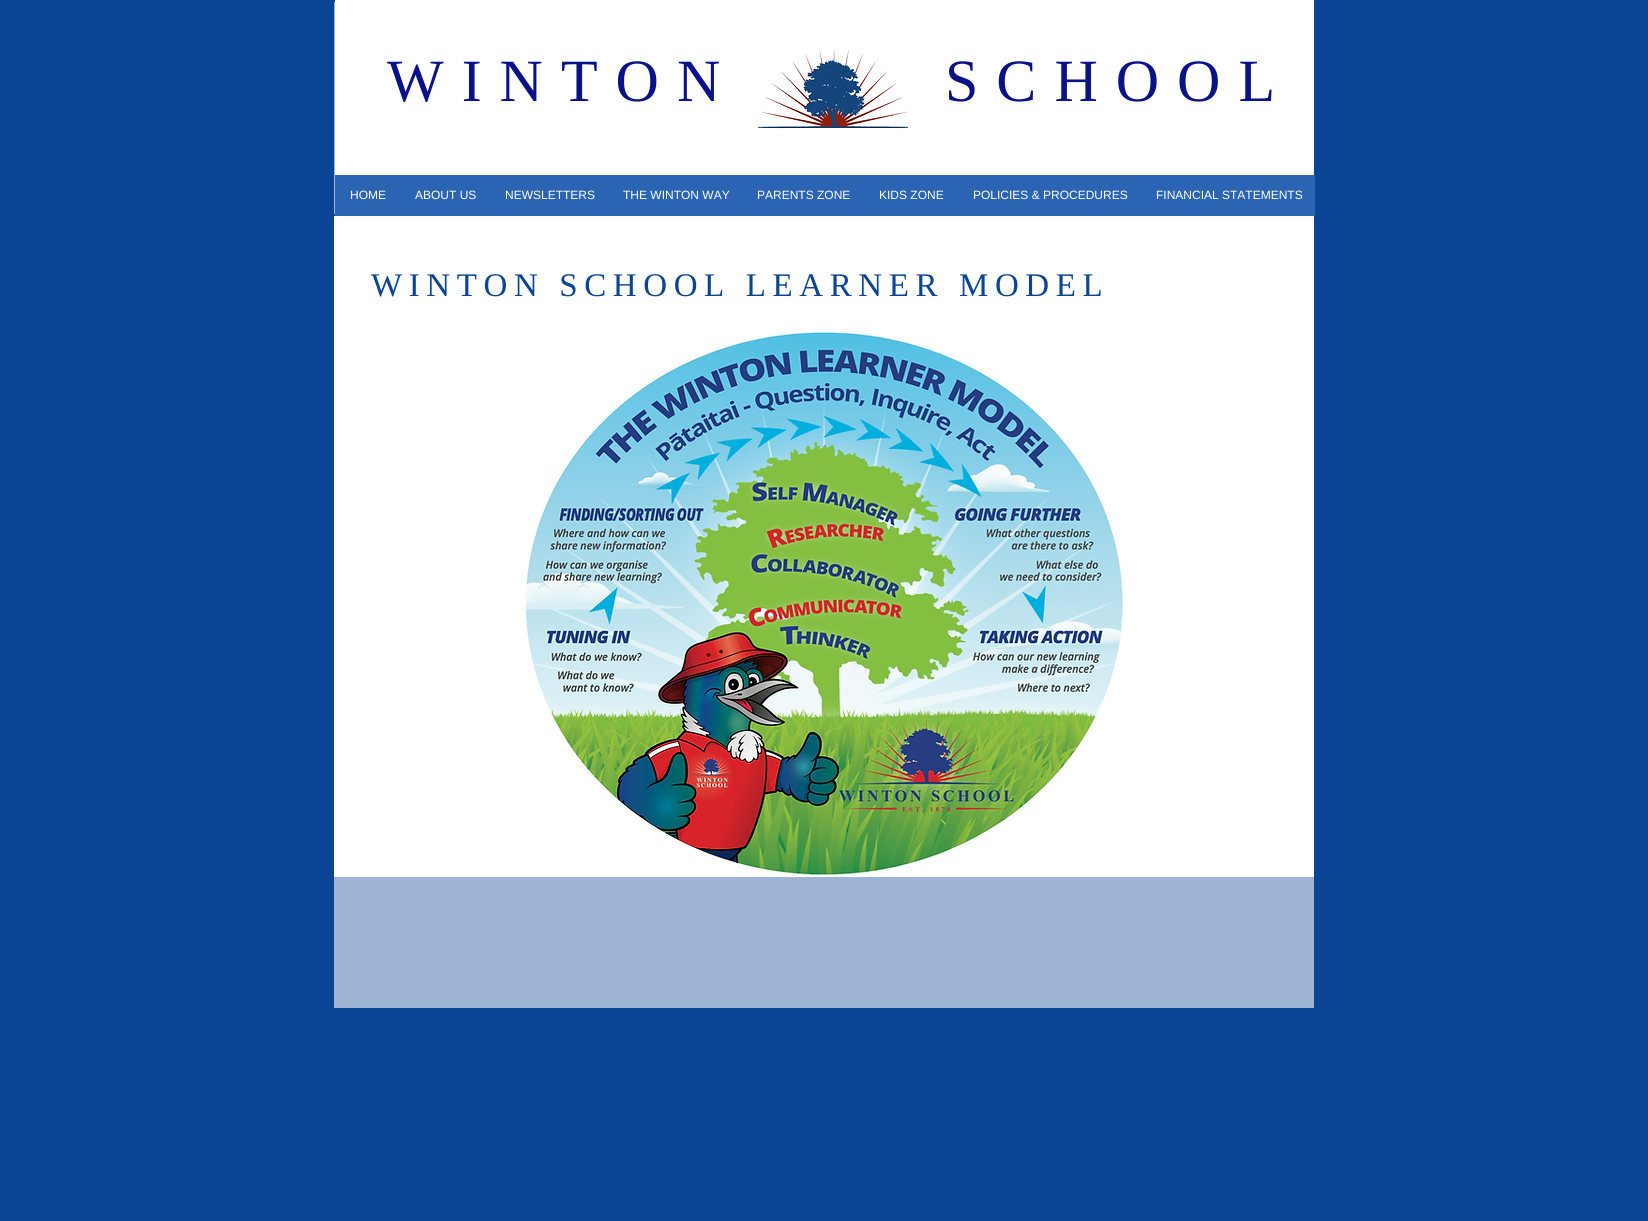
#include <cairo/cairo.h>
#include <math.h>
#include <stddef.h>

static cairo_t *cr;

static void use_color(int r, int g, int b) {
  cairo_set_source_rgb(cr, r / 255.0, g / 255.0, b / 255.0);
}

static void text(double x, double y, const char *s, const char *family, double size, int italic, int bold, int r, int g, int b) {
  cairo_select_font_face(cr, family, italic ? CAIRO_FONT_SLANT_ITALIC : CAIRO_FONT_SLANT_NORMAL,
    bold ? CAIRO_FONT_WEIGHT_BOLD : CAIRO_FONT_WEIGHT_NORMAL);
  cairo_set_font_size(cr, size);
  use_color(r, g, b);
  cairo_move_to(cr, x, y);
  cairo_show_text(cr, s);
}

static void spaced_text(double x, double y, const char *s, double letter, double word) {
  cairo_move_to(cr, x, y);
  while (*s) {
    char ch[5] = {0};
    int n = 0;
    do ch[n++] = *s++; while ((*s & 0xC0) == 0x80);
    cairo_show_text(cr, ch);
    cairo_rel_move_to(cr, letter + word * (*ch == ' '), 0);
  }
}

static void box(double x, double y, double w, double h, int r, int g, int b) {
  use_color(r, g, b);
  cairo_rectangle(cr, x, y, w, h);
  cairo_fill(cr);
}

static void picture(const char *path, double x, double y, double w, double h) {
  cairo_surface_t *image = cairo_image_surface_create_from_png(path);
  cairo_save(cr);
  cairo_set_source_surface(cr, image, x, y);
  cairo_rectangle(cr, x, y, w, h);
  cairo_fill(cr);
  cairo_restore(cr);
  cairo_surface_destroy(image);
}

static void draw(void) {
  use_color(10, 68, 149);
  cairo_paint(cr);
  box(334, 2, 1, 212, 157, 180, 212);
  box(335, 0, 979, 175, 255, 255, 255);
  picture("img_01.png", 758, 48, 150, 81);
  box(335, 175, 980, 41, 44, 100, 180);
  box(334, 216, 980, 661, 255, 255, 255);
  picture("img_02.png", 525, 332, 598, 543);
  box(334, 877, 980, 131, 157, 180, 213);
  cairo_select_font_face(cr, "Liberation Serif", CAIRO_FONT_SLANT_NORMAL, CAIRO_FONT_WEIGHT_NORMAL);
  cairo_set_font_size(cr, 60);
  use_color(11, 17, 137);
  spaced_text(387, 101, "WINTON", 18, 0);
  spaced_text(945, 101, "SCHOOL", 18, 0);
  text(350, 199, "HOME", "Liberation Sans", 12, 0, 0, 255, 255, 255);
  text(415, 199, "ABOUT US", "Liberation Sans", 12, 0, 0, 255, 255, 255);
  text(505, 199, "NEWSLETTERS", "Liberation Sans", 12, 0, 0, 255, 255, 255);
  text(623, 199, "THE WINTON WAY", "Liberation Sans", 12, 0, 0, 255, 255, 255);
  text(757, 199, "PARENTS ZONE", "Liberation Sans", 12, 0, 0, 255, 255, 255);
  text(879, 199, "KIDS ZONE", "Liberation Sans", 12, 0, 0, 255, 255, 255);
  text(973, 199, "POLICIES & PROCEDURES", "Liberation Sans", 12, 0, 0, 255, 255, 255);
  text(1156, 199, "FINANCIAL STATEMENTS", "Liberation Sans", 12, 0, 0, 255, 255, 255);
  cairo_select_font_face(cr, "Liberation Serif", CAIRO_FONT_SLANT_NORMAL, CAIRO_FONT_WEIGHT_NORMAL);
  cairo_set_font_size(cr, 33);
  use_color(10, 68, 149);
  spaced_text(371, 296, "WINTON SCHOOL LEARNER MODEL", 6.6, 0);
}

int main(void) {
  cairo_surface_t *surface = cairo_image_surface_create(CAIRO_FORMAT_RGB24, 1648, 1221);
  cr = cairo_create(surface);
  cairo_font_options_t *options = cairo_font_options_create();
  cairo_font_options_set_hint_metrics(options, CAIRO_HINT_METRICS_OFF);
  cairo_font_options_set_hint_style(options, CAIRO_HINT_STYLE_NONE);
  cairo_set_font_options(cr, options);
  cairo_set_miter_limit(cr, 4);
  draw();
  cairo_surface_write_to_png(surface, "out.png");
  cairo_font_options_destroy(options);
  cairo_destroy(cr);
  cairo_surface_destroy(surface);
  return 0;
}
